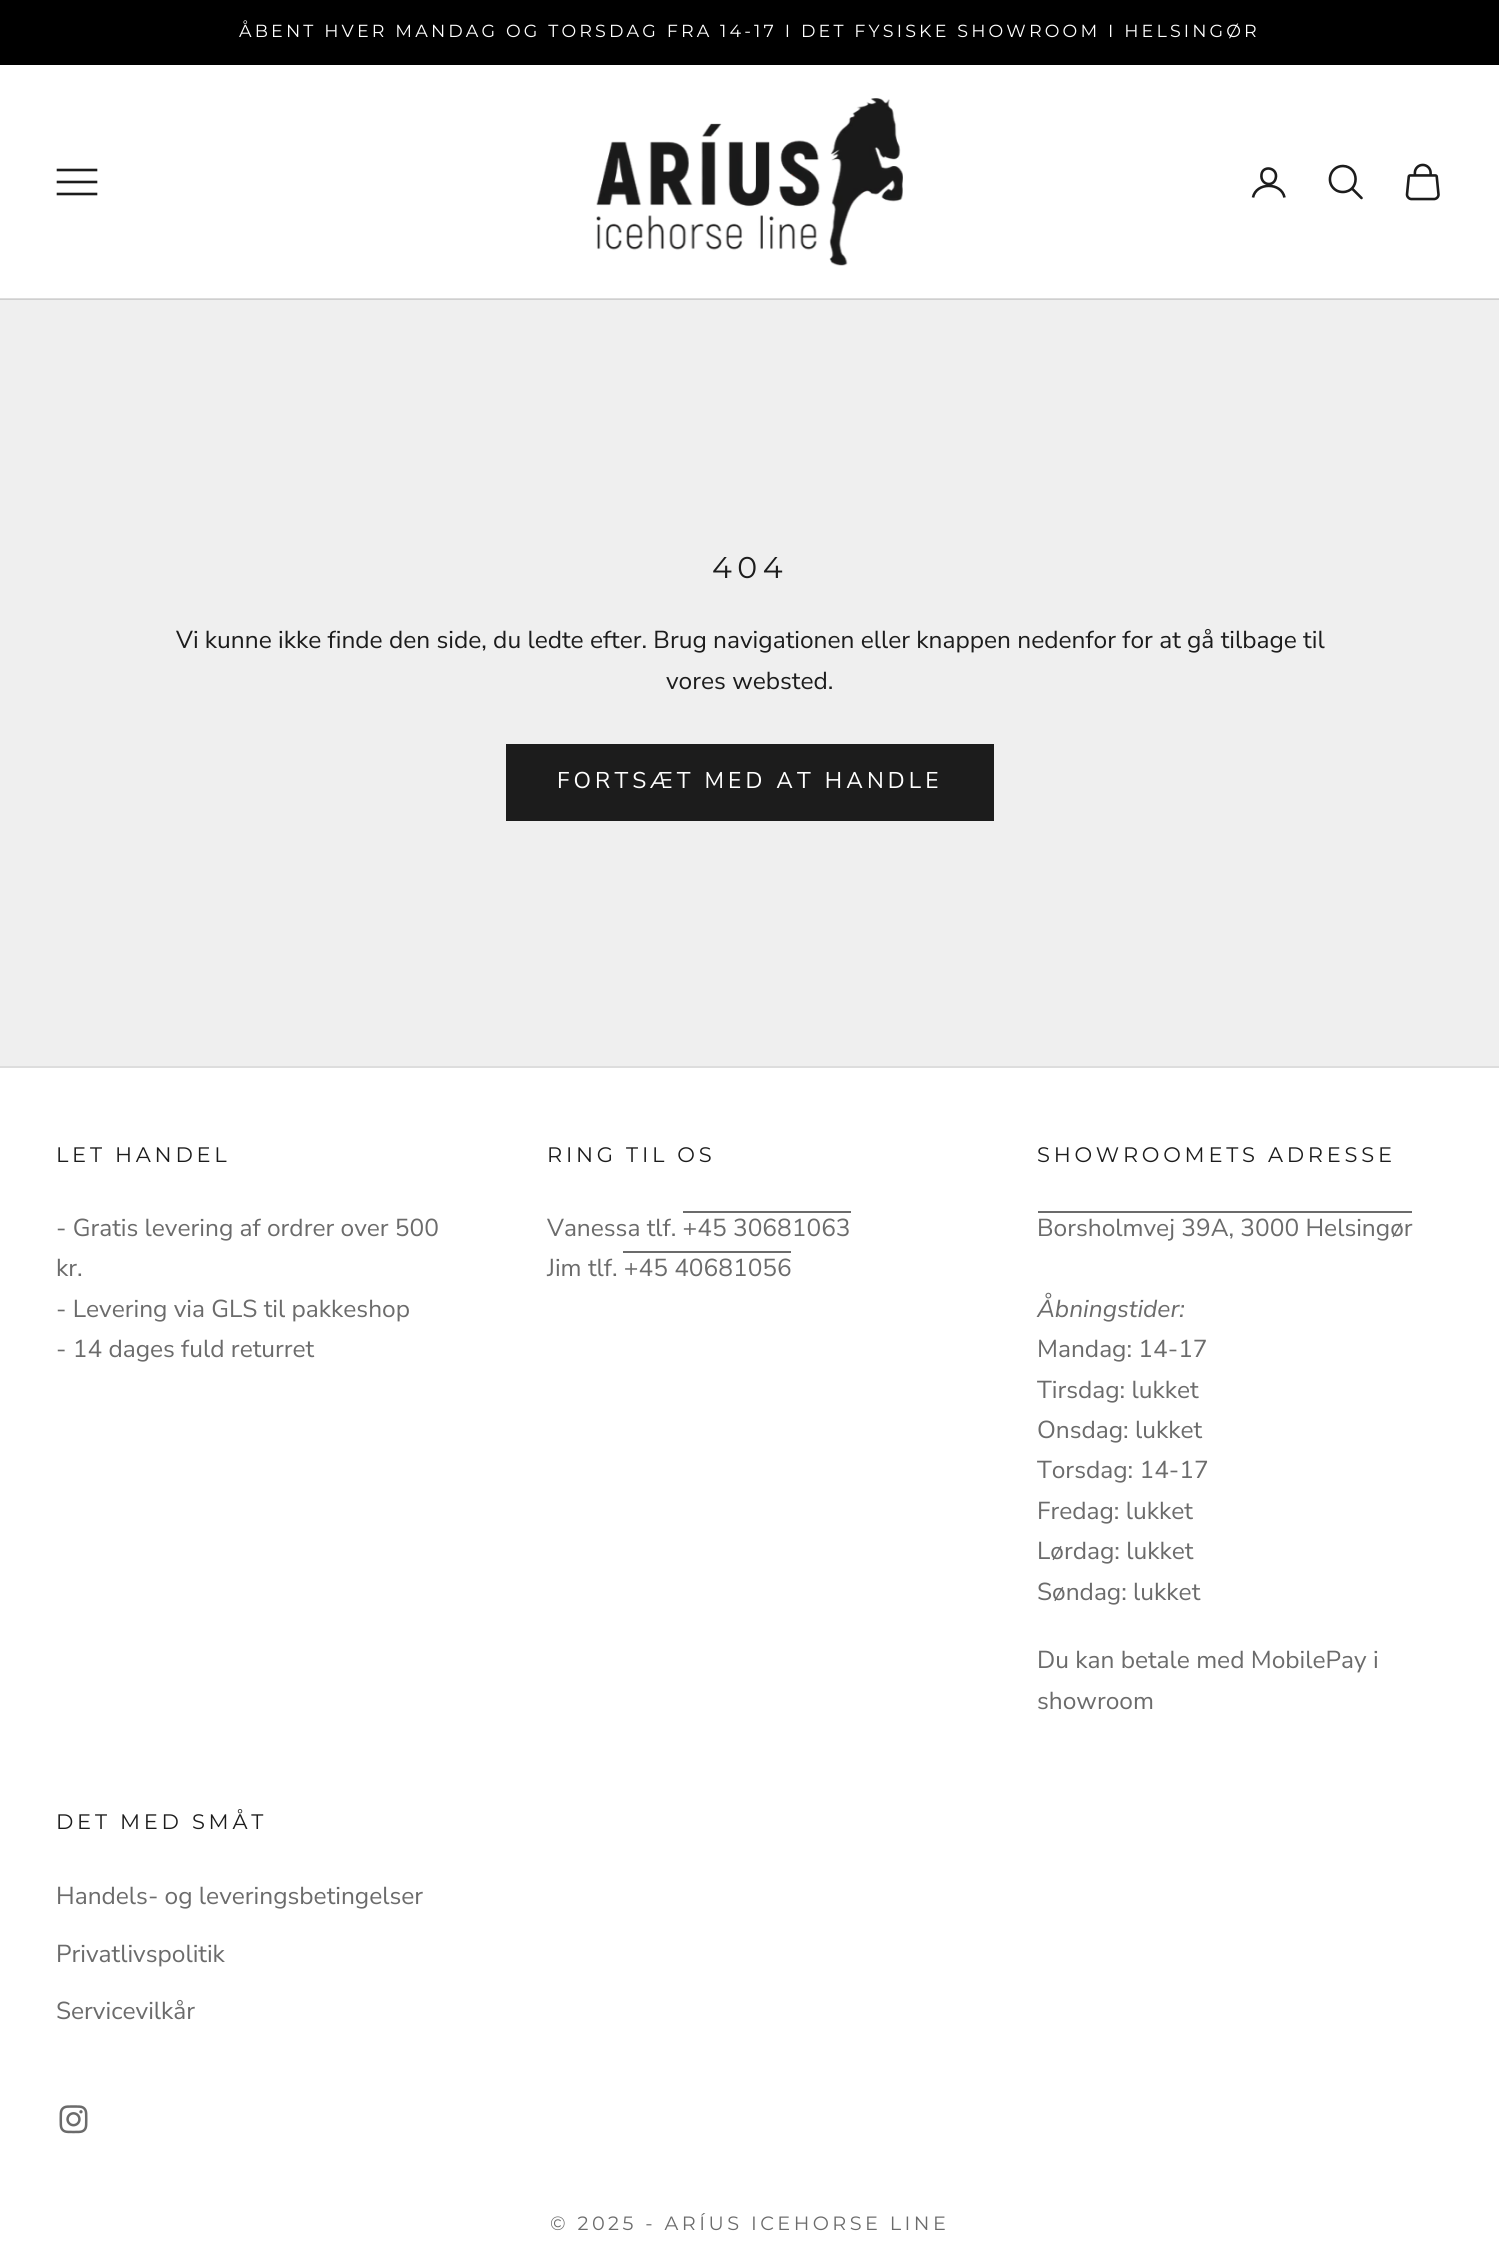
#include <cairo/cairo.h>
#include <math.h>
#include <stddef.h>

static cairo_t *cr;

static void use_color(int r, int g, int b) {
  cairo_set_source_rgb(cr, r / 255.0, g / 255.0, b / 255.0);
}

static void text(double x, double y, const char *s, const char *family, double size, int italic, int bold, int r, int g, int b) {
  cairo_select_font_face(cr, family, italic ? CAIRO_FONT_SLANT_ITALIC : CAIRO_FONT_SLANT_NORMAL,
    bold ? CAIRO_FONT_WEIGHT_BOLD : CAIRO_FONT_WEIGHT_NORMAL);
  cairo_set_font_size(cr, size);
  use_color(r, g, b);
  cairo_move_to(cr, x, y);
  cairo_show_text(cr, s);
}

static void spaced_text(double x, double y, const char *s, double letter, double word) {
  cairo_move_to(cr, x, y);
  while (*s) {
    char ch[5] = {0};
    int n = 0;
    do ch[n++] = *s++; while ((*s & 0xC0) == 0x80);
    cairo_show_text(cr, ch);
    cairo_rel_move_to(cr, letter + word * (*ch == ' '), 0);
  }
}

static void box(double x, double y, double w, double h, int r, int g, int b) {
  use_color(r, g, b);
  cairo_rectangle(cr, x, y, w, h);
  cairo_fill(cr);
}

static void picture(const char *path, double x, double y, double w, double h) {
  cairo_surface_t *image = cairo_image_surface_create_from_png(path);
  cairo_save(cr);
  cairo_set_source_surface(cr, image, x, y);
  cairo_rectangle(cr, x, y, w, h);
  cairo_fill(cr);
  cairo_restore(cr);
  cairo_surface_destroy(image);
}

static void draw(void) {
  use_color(239, 239, 239);
  cairo_paint(cr);
  box(0, 299, 1499, 1, 207, 207, 207);
  box(0, 0, 1499, 65, 0, 0, 0);
  box(0, 65, 1499, 233, 255, 255, 255);
  box(0, 298, 1499, 1, 221, 221, 221);
  cairo_new_path(cr);
  cairo_move_to(cr, 58, 194);
  cairo_line_to(cr, 96, 194);
  cairo_move_to(cr, 58, 182);
  cairo_line_to(cr, 96, 182);
  cairo_move_to(cr, 58, 170);
  cairo_line_to(cr, 96, 170);
  use_color(28, 28, 28);
  cairo_set_line_width(cr, 2.6);
  cairo_set_line_cap(cr, CAIRO_LINE_CAP_SQUARE);
  cairo_stroke(cr);
  picture("img_01.png", 596, 98, 307, 168);
  cairo_new_path(cr);
  cairo_move_to(cr, 1276, 176.5);
  cairo_curve_to(cr, 1275, 188, 1260, 185.5, 1261.5, 174.5);
  cairo_curve_to(cr, 1262.5, 165.5, 1276.5, 167, 1276, 176.5);
  cairo_close_path(cr);
  cairo_set_line_cap(cr, CAIRO_LINE_CAP_ROUND);
  cairo_set_line_join(cr, CAIRO_LINE_JOIN_ROUND);
  cairo_stroke(cr);
  cairo_new_path(cr);
  cairo_move_to(cr, 1253, 197.5);
  cairo_curve_to(cr, 1256, 182, 1281.5, 182, 1284.5, 197.5);
  cairo_set_line_cap(cr, CAIRO_LINE_CAP_BUTT);
  cairo_set_line_join(cr, CAIRO_LINE_JOIN_MITER);
  cairo_stroke(cr);
  cairo_new_path(cr);
  cairo_move_to(cr, 1343, 166);
  cairo_curve_to(cr, 1329.5, 166, 1325, 184, 1336.5, 190.5);
  cairo_curve_to(cr, 1338.5, 191.5, 1340.5, 192, 1343, 192);
  cairo_curve_to(cr, 1360, 191.5, 1359.5, 166.5, 1343, 166);
  cairo_close_path(cr);
  cairo_stroke(cr);
  cairo_new_path(cr);
  cairo_move_to(cr, 1352.5, 189);
  cairo_line_to(cr, 1361.5, 198);
  cairo_set_line_cap(cr, CAIRO_LINE_CAP_ROUND);
  cairo_stroke(cr);
  picture("img_02.png", 1405, 163, 35, 38);
  cairo_rectangle(cr, 507, 745, 486, 75);
  cairo_fill_preserve(cr);
  cairo_set_line_width(cr, 2);
  cairo_set_line_cap(cr, CAIRO_LINE_CAP_BUTT);
  cairo_stroke(cr);
  box(0, 1068, 1499, 1183, 255, 255, 255);
  box(0, 1066, 1499, 2, 221, 221, 221);
  box(683, 1211, 168, 2, 107, 107, 107);
  box(623, 1251, 168, 2, 107, 107, 107);
  box(1038, 1211, 374, 2, 107, 107, 107);
  picture("img_03.png", 59, 2105, 29, 29);
  cairo_select_font_face(cr, "Montserrat", CAIRO_FONT_SLANT_NORMAL, CAIRO_FONT_WEIGHT_NORMAL);
  cairo_set_font_size(cr, 17.5);
  use_color(255, 255, 255);
  spaced_text(239, 37, "ÅBENT HVER MANDAG OG TORSDAG FRA 14-17 I DET FYSISKE SHOWROOM I HELSINGØR", 3.15, 0);
  cairo_set_font_size(cr, 30);
  use_color(28, 28, 28);
  spaced_text(712, 578, "404", 5.5, 0);
  text(176, 648, "Vi kunne ikke finde den side, du ledte efter. Brug navigationen eller knappen nedenfor for at gå tilbage til", "Nunito Sans", 24.5, 0, 0, 28, 28, 28);
  text(666, 689, "vores websted.", "Nunito Sans", 24.5, 0, 0, 28, 28, 28);
  cairo_set_font_size(cr, 22.75);
  use_color(255, 255, 255);
  spaced_text(557, 788, "FORTSÆT MED AT HANDLE", 4.1, 0);
  cairo_select_font_face(cr, "Montserrat", CAIRO_FONT_SLANT_NORMAL, CAIRO_FONT_WEIGHT_NORMAL);
  cairo_set_font_size(cr, 21);
  use_color(28, 28, 28);
  spaced_text(56, 1162, "LET HANDEL", 3.75, 0);
  text(56, 1236, "- Gratis levering af ordrer over 500", "Nunito Sans", 24.5, 0, 0, 107, 107, 107);
  text(56, 1276, "kr.", "Nunito Sans", 24.5, 0, 0, 107, 107, 107);
  text(56, 1317, "- Levering via GLS til pakkeshop", "Nunito Sans", 24.5, 0, 0, 107, 107, 107);
  text(56, 1357, "- 14 dages fuld returret", "Nunito Sans", 24.5, 0, 0, 107, 107, 107);
  cairo_select_font_face(cr, "Montserrat", CAIRO_FONT_SLANT_NORMAL, CAIRO_FONT_WEIGHT_NORMAL);
  cairo_set_font_size(cr, 21);
  use_color(28, 28, 28);
  spaced_text(547, 1162, "RING TIL OS", 3.75, 0);
  text(547, 1236, "Vanessa tlf. +45 30681063", "Nunito Sans", 24.5, 0, 0, 107, 107, 107);
  text(547, 1276, "Jim tlf. +45 40681056", "Nunito Sans", 24.5, 0, 0, 107, 107, 107);
  cairo_select_font_face(cr, "Montserrat", CAIRO_FONT_SLANT_NORMAL, CAIRO_FONT_WEIGHT_NORMAL);
  cairo_set_font_size(cr, 21);
  use_color(28, 28, 28);
  spaced_text(1037, 1162, "SHOWROOMETS ADRESSE", 3.75, 0);
  text(1037, 1236, "Borsholmvej 39A, 3000 Helsingør", "Nunito Sans", 24.5, 0, 0, 107, 107, 107);
  text(1037, 1317, "Åbningstider:", "Nunito Sans", 24.5, 1, 0, 107, 107, 107);
  text(1037, 1357, "Mandag: 14-17", "Nunito Sans", 24.5, 0, 0, 107, 107, 107);
  text(1037, 1398, "Tirsdag: lukket", "Nunito Sans", 24.5, 0, 0, 107, 107, 107);
  text(1037, 1438, "Onsdag: lukket", "Nunito Sans", 24.5, 0, 0, 107, 107, 107);
  text(1037, 1478, "Torsdag: 14-17", "Nunito Sans", 24.5, 0, 0, 107, 107, 107);
  text(1037, 1519, "Fredag: lukket", "Nunito Sans", 24.5, 0, 0, 107, 107, 107);
  text(1037, 1559, "Lørdag: lukket", "Nunito Sans", 24.5, 0, 0, 107, 107, 107);
  text(1037, 1600, "Søndag: lukket", "Nunito Sans", 24.5, 0, 0, 107, 107, 107);
  text(1037, 1668, "Du kan betale med MobilePay i", "Nunito Sans", 24.5, 0, 0, 107, 107, 107);
  text(1037, 1709, "showroom", "Nunito Sans", 24.5, 0, 0, 107, 107, 107);
  cairo_select_font_face(cr, "Montserrat", CAIRO_FONT_SLANT_NORMAL, CAIRO_FONT_WEIGHT_NORMAL);
  cairo_set_font_size(cr, 21);
  use_color(28, 28, 28);
  spaced_text(56, 1829, "DET MED SMÅT", 3.75, 0);
  text(56, 1904, "Handels- og leveringsbetingelser", "Nunito Sans", 24.5, 0, 0, 107, 107, 107);
  text(56, 1962, "Privatlivspolitik", "Nunito Sans", 24.5, 0, 0, 107, 107, 107);
  text(56, 2019, "Servicevilkår", "Nunito Sans", 24.5, 0, 0, 107, 107, 107);
  cairo_select_font_face(cr, "Montserrat", CAIRO_FONT_SLANT_NORMAL, CAIRO_FONT_WEIGHT_NORMAL);
  cairo_set_font_size(cr, 19.25);
  spaced_text(550, 2230, "© 2025 - ARÍUS ICEHORSE LINE", 3.45, 0);
}

int main(void) {
  cairo_surface_t *surface = cairo_image_surface_create(CAIRO_FORMAT_RGB24, 1499, 2251);
  cr = cairo_create(surface);
  cairo_font_options_t *options = cairo_font_options_create();
  cairo_font_options_set_hint_metrics(options, CAIRO_HINT_METRICS_OFF);
  cairo_font_options_set_hint_style(options, CAIRO_HINT_STYLE_NONE);
  cairo_set_font_options(cr, options);
  cairo_set_miter_limit(cr, 4);
  draw();
  cairo_surface_write_to_png(surface, "out.png");
  cairo_font_options_destroy(options);
  cairo_destroy(cr);
  cairo_surface_destroy(surface);
  return 0;
}
